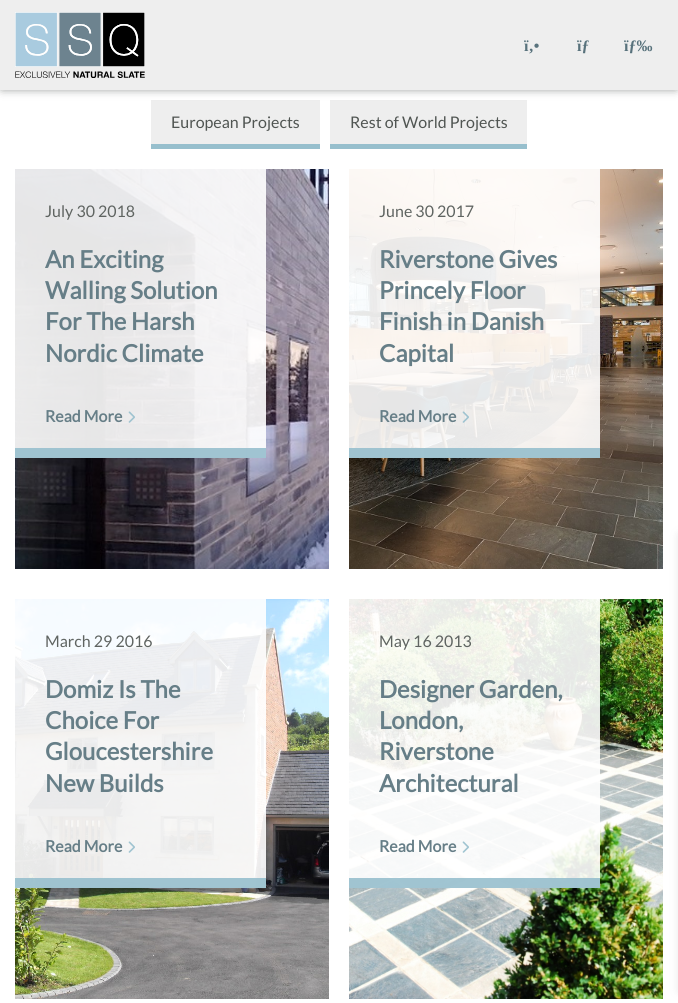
#include <cairo/cairo.h>
#include <math.h>
#include <stddef.h>

static cairo_t *cr;

static void use_color(int r, int g, int b) {
  cairo_set_source_rgb(cr, r / 255.0, g / 255.0, b / 255.0);
}

static void text(double x, double y, const char *s, const char *family, double size, int italic, int bold, int r, int g, int b) {
  cairo_select_font_face(cr, family, italic ? CAIRO_FONT_SLANT_ITALIC : CAIRO_FONT_SLANT_NORMAL,
    bold ? CAIRO_FONT_WEIGHT_BOLD : CAIRO_FONT_WEIGHT_NORMAL);
  cairo_set_font_size(cr, size);
  use_color(r, g, b);
  cairo_move_to(cr, x, y);
  cairo_show_text(cr, s);
}

static void box(double x, double y, double w, double h, int r, int g, int b) {
  use_color(r, g, b);
  cairo_rectangle(cr, x, y, w, h);
  cairo_fill(cr);
}

static void round_rect(double x, double y, double w, double h, double r) {
  cairo_new_sub_path(cr);
  cairo_arc(cr, x + w - r, y + h - r, r, 0, M_PI / 2);
  cairo_arc(cr, x + r, y + h - r, r, M_PI / 2, M_PI);
  cairo_arc(cr, x + r, y + r, r, M_PI, 1.5 * M_PI);
  cairo_arc(cr, x + w - r, y + r, r, 1.5 * M_PI, 2 * M_PI);
  cairo_close_path(cr);
}

static void shadow(double x, double y, double w, double h, double r, double blur, double alpha) {
  cairo_push_group_with_content(cr, CAIRO_CONTENT_ALPHA);
  cairo_set_operator(cr, CAIRO_OPERATOR_SOURCE);
  for (int i = 15; i >= -15 && fmin(w, h) + blur * i / 3 > 0; i -= 2) {
    double e = blur * i / 6;
    cairo_set_source_rgba(cr, 0, 0, 0, alpha * erfc((i - 1) / 8.5) / 2);
    round_rect(x - e, y - e, w + 2 * e, h + 2 * e, fmax(0, fmin(r + e + blur * .6, fmin(w, h) / 2 + e)));
    cairo_fill(cr);
  }
  cairo_pattern_t *soft = cairo_pop_group(cr);
  cairo_mask(cr, soft);
  cairo_pattern_destroy(soft);
}

static void picture(const char *path, double x, double y, double w, double h) {
  cairo_surface_t *image = cairo_image_surface_create_from_png(path);
  cairo_save(cr);
  cairo_set_source_surface(cr, image, x, y);
  cairo_rectangle(cr, x, y, w, h);
  cairo_fill(cr);
  cairo_restore(cr);
  cairo_surface_destroy(image);
}

static void draw(void) {
  use_color(255, 255, 255);
  cairo_paint(cr);
  box(151, 100, 169, 44, 238, 238, 238);
  box(330, 100, 197, 44, 238, 238, 238);
  use_color(80, 85, 82);
  shadow(2, 2, 674, 86, 0, 5, 0.8);
  box(0, 0, 678, 90, 238, 238, 238);
  picture("img_01.png", 15, 12, 130, 66);
  box(151, 144, 169, 5, 151, 191, 205);
  box(330, 144, 197, 5, 151, 191, 205);
  picture("img_02.png", 15, 169, 314, 400);
  cairo_set_source_rgba(cr, 1, 1, 1, 0.9);
  cairo_rectangle(cr, 15, 169, 251, 289);
  cairo_fill(cr);
  cairo_set_source_rgba(cr, 0.592, 0.749, 0.804, 0.9);
  cairo_rectangle(cr, 15, 448, 251, 10);
  cairo_fill(cr);
  picture("img_03.png", 128, 411, 7, 12);
  picture("img_04.png", 349, 169, 314, 400);
  cairo_set_source_rgba(cr, 1, 1, 1, 0.9);
  cairo_rectangle(cr, 349, 169, 251, 289);
  cairo_fill(cr);
  cairo_set_source_rgba(cr, 0.592, 0.749, 0.804, 0.9);
  cairo_rectangle(cr, 349, 448, 251, 10);
  cairo_fill(cr);
  picture("img_05.png", 462, 411, 7, 12);
  picture("img_06.png", 15, 599, 314, 400);
  cairo_set_source_rgba(cr, 1, 1, 1, 0.9);
  cairo_rectangle(cr, 15, 599, 251, 289);
  cairo_fill(cr);
  cairo_set_source_rgba(cr, 0.592, 0.749, 0.804, 0.9);
  cairo_rectangle(cr, 15, 878, 251, 10);
  cairo_fill(cr);
  picture("img_07.png", 128, 841, 7, 12);
  picture("img_08.png", 349, 599, 314, 400);
  cairo_set_source_rgba(cr, 1, 1, 1, 0.9);
  cairo_rectangle(cr, 349, 599, 251, 289);
  cairo_fill(cr);
  cairo_set_source_rgba(cr, 0.592, 0.749, 0.804, 0.9);
  cairo_rectangle(cr, 349, 878, 251, 10);
  cairo_fill(cr);
  picture("img_09.png", 462, 841, 7, 12);
  use_color(80, 85, 82);
  shadow(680, 535, 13, 456, 0, 5, 0.2);
  text(524, 51, "ï‚•", "Liberation Serif", 16, 0, 1, 88, 114, 124);
  text(577, 51, "ïƒ", "Liberation Serif", 16, 0, 1, 88, 114, 124);
  text(624, 51, "ïƒ‰", "Liberation Serif", 16, 0, 1, 88, 114, 124);
  text(171, 128, "European Projects", "Lato", 16, 0, 0, 80, 85, 82);
  text(350, 128, "Rest of World Projects", "Lato", 16, 0, 0, 80, 85, 82);
  text(45, 217, "July 30 2018", "Lato", 16, 0, 0, 95, 100, 97);
  text(45, 268, "An Exciting", "Lato", 24, 0, 1, 102, 126, 135);
  text(45, 299, "Walling Solution", "Lato", 24, 0, 1, 102, 126, 135);
  text(45, 330, "For The Harsh", "Lato", 24, 0, 1, 102, 126, 135);
  text(45, 362, "Nordic Climate", "Lato", 24, 0, 1, 102, 126, 135);
  text(45, 422, "Read More", "Lato", 16, 0, 1, 102, 126, 135);
  text(379, 217, "June 30 2017", "Lato", 16, 0, 0, 95, 100, 97);
  text(379, 268, "Riverstone Gives", "Lato", 24, 0, 1, 102, 126, 135);
  text(379, 299, "Princely Floor", "Lato", 24, 0, 1, 102, 126, 135);
  text(379, 330, "Finish in Danish", "Lato", 24, 0, 1, 102, 126, 135);
  text(379, 362, "Capital", "Lato", 24, 0, 1, 102, 126, 135);
  text(379, 422, "Read More", "Lato", 16, 0, 1, 102, 126, 135);
  text(45, 647, "March 29 2016", "Lato", 16, 0, 0, 95, 100, 97);
  text(45, 698, "Domiz Is The", "Lato", 24, 0, 1, 102, 126, 135);
  text(45, 729, "Choice For", "Lato", 24, 0, 1, 102, 126, 135);
  text(45, 760, "Gloucestershire", "Lato", 24, 0, 1, 102, 126, 135);
  text(45, 792, "New Builds", "Lato", 24, 0, 1, 102, 126, 135);
  text(45, 852, "Read More", "Lato", 16, 0, 1, 102, 126, 135);
  text(379, 647, "May 16 2013", "Lato", 16, 0, 0, 95, 100, 97);
  text(379, 698, "Designer Garden,", "Lato", 24, 0, 1, 102, 126, 135);
  text(379, 729, "London,", "Lato", 24, 0, 1, 102, 126, 135);
  text(379, 760, "Riverstone", "Lato", 24, 0, 1, 102, 126, 135);
  text(379, 792, "Architectural", "Lato", 24, 0, 1, 102, 126, 135);
  text(379, 852, "Read More", "Lato", 16, 0, 1, 102, 126, 135);
}

int main(void) {
  cairo_surface_t *surface = cairo_image_surface_create(CAIRO_FORMAT_RGB24, 678, 1003);
  cr = cairo_create(surface);
  cairo_font_options_t *options = cairo_font_options_create();
  cairo_font_options_set_hint_metrics(options, CAIRO_HINT_METRICS_OFF);
  cairo_font_options_set_hint_style(options, CAIRO_HINT_STYLE_NONE);
  cairo_set_font_options(cr, options);
  cairo_set_miter_limit(cr, 4);
  draw();
  cairo_surface_write_to_png(surface, "out.png");
  cairo_font_options_destroy(options);
  cairo_destroy(cr);
  cairo_surface_destroy(surface);
  return 0;
}
